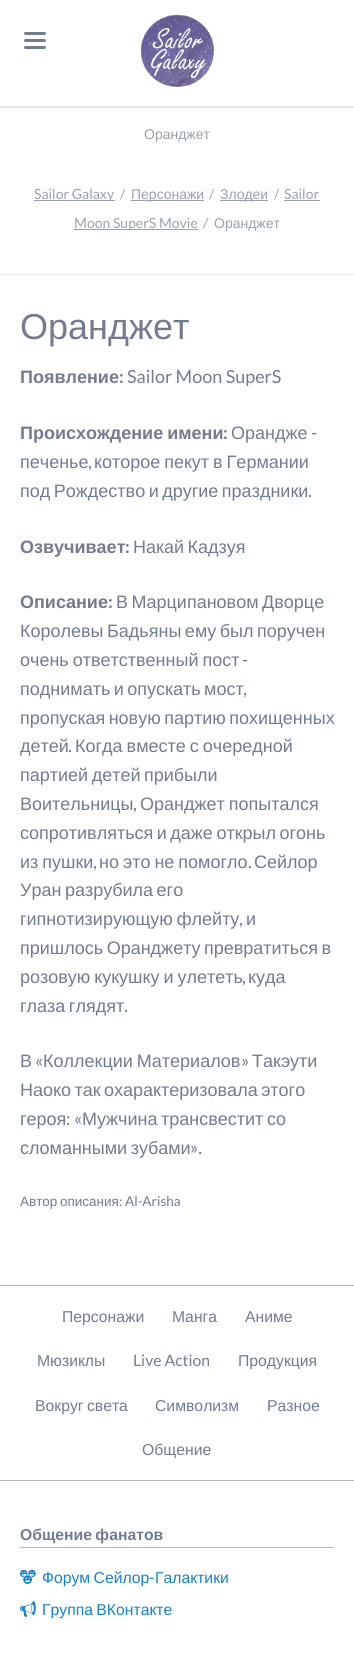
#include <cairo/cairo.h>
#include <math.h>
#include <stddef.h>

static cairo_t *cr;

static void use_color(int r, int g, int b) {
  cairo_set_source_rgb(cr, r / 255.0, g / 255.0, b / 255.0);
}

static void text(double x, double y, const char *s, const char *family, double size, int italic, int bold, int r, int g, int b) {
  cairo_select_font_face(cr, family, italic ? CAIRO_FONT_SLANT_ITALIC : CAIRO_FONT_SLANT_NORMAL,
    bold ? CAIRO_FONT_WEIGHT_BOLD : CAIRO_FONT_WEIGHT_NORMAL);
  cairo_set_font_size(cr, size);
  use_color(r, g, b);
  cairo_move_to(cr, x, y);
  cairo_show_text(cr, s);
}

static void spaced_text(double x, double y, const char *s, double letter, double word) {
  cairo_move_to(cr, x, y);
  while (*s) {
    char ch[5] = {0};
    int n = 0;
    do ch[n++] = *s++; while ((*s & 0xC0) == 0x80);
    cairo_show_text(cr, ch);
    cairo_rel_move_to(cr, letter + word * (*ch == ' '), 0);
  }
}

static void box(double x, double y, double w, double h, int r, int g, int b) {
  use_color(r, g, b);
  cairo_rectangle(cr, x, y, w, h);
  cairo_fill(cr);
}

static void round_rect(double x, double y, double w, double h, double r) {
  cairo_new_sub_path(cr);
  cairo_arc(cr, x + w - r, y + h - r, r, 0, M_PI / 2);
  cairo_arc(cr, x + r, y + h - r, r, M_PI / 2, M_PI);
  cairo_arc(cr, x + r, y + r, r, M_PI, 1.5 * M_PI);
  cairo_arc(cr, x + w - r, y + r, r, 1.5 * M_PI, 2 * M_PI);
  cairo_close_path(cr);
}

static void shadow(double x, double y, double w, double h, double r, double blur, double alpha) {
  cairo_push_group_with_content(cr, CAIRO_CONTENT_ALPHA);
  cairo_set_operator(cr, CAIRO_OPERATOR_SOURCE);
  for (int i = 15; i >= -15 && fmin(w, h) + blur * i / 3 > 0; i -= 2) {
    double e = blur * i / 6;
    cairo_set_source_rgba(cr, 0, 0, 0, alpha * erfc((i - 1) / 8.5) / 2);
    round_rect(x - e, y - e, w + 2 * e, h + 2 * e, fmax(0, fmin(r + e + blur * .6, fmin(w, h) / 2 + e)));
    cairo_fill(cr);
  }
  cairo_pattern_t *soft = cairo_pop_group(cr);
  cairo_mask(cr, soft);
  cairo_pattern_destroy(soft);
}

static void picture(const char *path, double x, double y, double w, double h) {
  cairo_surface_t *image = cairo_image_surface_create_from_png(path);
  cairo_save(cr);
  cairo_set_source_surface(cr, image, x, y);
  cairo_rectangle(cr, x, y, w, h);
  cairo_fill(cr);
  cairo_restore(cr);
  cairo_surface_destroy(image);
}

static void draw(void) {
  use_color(255, 255, 255);
  cairo_paint(cr);
  cairo_save(cr);
  cairo_rectangle(cr, 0, 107, 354, 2);
  cairo_clip(cr);
  use_color(0, 0, 0);
  shadow(0, 1, 354, 107, 0, 1, 0.1);
  cairo_restore(cr);
  box(0, 106, 354, 1, 229, 232, 238);
  picture("img_01.png", 140, 14, 74, 73);
  use_color(113, 124, 142);
  round_rect(24, 46, 22, 3, 1.5);
  cairo_fill(cr);
  round_rect(24, 39, 22, 3, 1.5);
  cairo_fill(cr);
  round_rect(24, 32, 22, 3, 1.5);
  cairo_fill(cr);
  box(0, 274, 354, 1, 229, 232, 238);
  box(34, 200, 81, 1, 152, 160, 171);
  box(131, 200, 73, 1, 152, 160, 171);
  box(220, 200, 48, 1, 152, 160, 171);
  box(284, 200, 36, 1, 152, 160, 171);
  box(74, 229, 124, 1, 152, 160, 171);
  box(0, 1285, 354, 1, 178, 185, 196);
  box(0, 1480, 354, 1, 178, 185, 196);
  box(20, 1547, 314, 1, 178, 185, 196);
  picture("img_02.png", 20, 1569, 16, 15);
  picture("img_03.png", 20, 1601, 16, 16);
  text(144, 139, "Оранджет", "Liberation Sans", 14, 0, 0, 152, 160, 171);
  text(34, 199, "Sailor Galaxy", "Lato", 14, 0, 0, 152, 160, 171);
  text(120, 199, "/", "Lato", 14, 0, 0, 152, 160, 171);
  text(131, 199, "Персонажи", "Liberation Sans", 14, 0, 0, 152, 160, 171);
  text(209, 199, "/", "Lato", 14, 0, 0, 152, 160, 171);
  text(220, 199, "Злодеи", "Liberation Sans", 14, 0, 0, 152, 160, 171);
  text(274, 199, "/", "Lato", 14, 0, 0, 152, 160, 171);
  text(284, 199, "Sailor", "Lato", 14, 0, 0, 152, 160, 171);
  text(74, 228, "Moon SuperS Movie", "Lato", 14, 0, 0, 152, 160, 171);
  text(203, 228, "/", "Lato", 14, 0, 0, 152, 160, 171);
  text(214, 228, "Оранджет", "Liberation Sans", 14, 0, 0, 152, 160, 171);
  text(20, 339, "Оранджет", "Liberation Sans", 36, 0, 0, 113, 124, 142);
  text(20, 383, "Появление", "Liberation Sans", 18, 0, 1, 113, 124, 142);
  text(119, 383, ":", "Lato", 18, 0, 1, 113, 124, 142);
  text(127, 383, "Sailor Moon SuperS", "Lato", 18, 0, 0, 113, 124, 142);
  cairo_select_font_face(cr, "Liberation Sans", CAIRO_FONT_SLANT_NORMAL, CAIRO_FONT_WEIGHT_BOLD);
  spaced_text(20, 439, "Происхождение имени", 0, -1);
  text(223, 439, ":", "Lato", 18, 0, 1, 113, 124, 142);
  text(231, 439, "Орандже", "Liberation Sans", 18, 0, 0, 113, 124, 142);
  text(311, 439, "-", "Lato", 18, 0, 0, 113, 124, 142);
  text(20, 468, "печенье", "Liberation Sans", 18, 0, 0, 113, 124, 142);
  text(88, 468, ",", "Lato", 18, 0, 0, 113, 124, 142);
  cairo_select_font_face(cr, "Liberation Sans", CAIRO_FONT_SLANT_NORMAL, CAIRO_FONT_WEIGHT_NORMAL);
  spaced_text(94, 468, "которое пекут в Германии", 0, -1);
  spaced_text(20, 497, "под Рождество и другие праздники", 0, -1.5);
  text(308, 497, ".", "Lato", 18, 0, 0, 113, 124, 142);
  text(20, 553, "Озвучивает", "Liberation Sans", 18, 0, 1, 113, 124, 142);
  text(125, 553, ":", "Lato", 18, 0, 1, 113, 124, 142);
  cairo_select_font_face(cr, "Liberation Sans", CAIRO_FONT_SLANT_NORMAL, CAIRO_FONT_WEIGHT_NORMAL);
  spaced_text(133, 553, "Накай Кадзуя", 0, -1.5);
  text(20, 608, "Описание", "Liberation Sans", 18, 0, 1, 113, 124, 142);
  text(108, 608, ":", "Lato", 18, 0, 1, 113, 124, 142);
  cairo_select_font_face(cr, "Liberation Sans", CAIRO_FONT_SLANT_NORMAL, CAIRO_FONT_WEIGHT_NORMAL);
  spaced_text(116, 608, "В Марципановом Дворце", 0, -1.5);
  spaced_text(20, 637, "Королевы Бадьяны ему был поручен", 0, -1.5);
  spaced_text(20, 666, "очень ответственный пост", 0, -1);
  text(242, 666, "-", "Lato", 18, 0, 0, 113, 124, 142);
  cairo_select_font_face(cr, "Liberation Sans", CAIRO_FONT_SLANT_NORMAL, CAIRO_FONT_WEIGHT_NORMAL);
  spaced_text(20, 695, "поднимать и опускать мост", 0, -1.5);
  text(243, 695, ",", "Lato", 18, 0, 0, 113, 124, 142);
  cairo_select_font_face(cr, "Liberation Sans", CAIRO_FONT_SLANT_NORMAL, CAIRO_FONT_WEIGHT_NORMAL);
  spaced_text(20, 724, "пропуская новую партию похищенных", 0, -1.5);
  text(20, 752, "детей", "Liberation Sans", 18, 0, 0, 113, 124, 142);
  text(68, 752, ".", "Lato", 18, 0, 0, 113, 124, 142);
  cairo_select_font_face(cr, "Liberation Sans", CAIRO_FONT_SLANT_NORMAL, CAIRO_FONT_WEIGHT_NORMAL);
  spaced_text(75, 752, "Когда вместе с очередной", 0, -1);
  spaced_text(20, 781, "партией детей прибыли", 0, -1.5);
  text(20, 810, "Воительницы", "Liberation Sans", 18, 0, 0, 113, 124, 142);
  text(133, 810, ",", "Lato", 18, 0, 0, 113, 124, 142);
  cairo_select_font_face(cr, "Liberation Sans", CAIRO_FONT_SLANT_NORMAL, CAIRO_FONT_WEIGHT_NORMAL);
  spaced_text(140, 810, "Оранджет попытался", 0, -1);
  spaced_text(20, 839, "сопротивляться и даже открыл огонь", 0, -1.5);
  spaced_text(20, 868, "из пушки", 0, -1);
  text(93, 868, ",", "Lato", 18, 0, 0, 113, 124, 142);
  cairo_select_font_face(cr, "Liberation Sans", CAIRO_FONT_SLANT_NORMAL, CAIRO_FONT_WEIGHT_NORMAL);
  spaced_text(99, 868, "но это не помогло", 0, -1);
  text(248, 868, ".", "Lato", 18, 0, 0, 113, 124, 142);
  text(254, 868, "Сейлор", "Liberation Sans", 18, 0, 0, 113, 124, 142);
  spaced_text(20, 896, "Уран разрубила его", 0, -1.5);
  spaced_text(20, 925, "гипнотизирующую флейту", 0, -1);
  text(239, 925, ",", "Lato", 18, 0, 0, 113, 124, 142);
  text(246, 925, "и", "Liberation Sans", 18, 0, 0, 113, 124, 142);
  spaced_text(20, 954, "пришлось Оранджету превратиться в", 0, -1.5);
  spaced_text(20, 983, "розовую кукушку и улететь", 0, -1);
  text(242, 983, ",", "Lato", 18, 0, 0, 113, 124, 142);
  text(248, 983, "куда", "Liberation Sans", 18, 0, 0, 113, 124, 142);
  spaced_text(20, 1012, "глаза глядят", 0, -1.5);
  text(124, 1012, ".", "Lato", 18, 0, 0, 113, 124, 142);
  text(20, 1067, "В", "Liberation Sans", 18, 0, 0, 113, 124, 142);
  text(35, 1067, "«", "Lato", 18, 0, 0, 113, 124, 142);
  cairo_select_font_face(cr, "Liberation Sans", CAIRO_FONT_SLANT_NORMAL, CAIRO_FONT_WEIGHT_NORMAL);
  spaced_text(43, 1067, "Коллекции Материалов", 0, -1);
  text(241, 1067, "»", "Lato", 18, 0, 0, 113, 124, 142);
  text(252, 1067, "Такэути", "Liberation Sans", 18, 0, 0, 113, 124, 142);
  spaced_text(20, 1096, "Наоко так охарактеризовала этого", 0, -1.5);
  text(20, 1125, "героя", "Liberation Sans", 18, 0, 0, 113, 124, 142);
  text(66, 1125, ": «", "Lato", 18, 0, 0, 113, 124, 142);
  text(82, 1125, "Мужчина", "Liberation Sans", 18, 0, 0, 113, 124, 142);
  text(161, 1125, "трансвестит", "Liberation Sans", 18, 0, 0, 113, 124, 142);
  text(267, 1125, "со", "Liberation Sans", 18, 0, 0, 113, 124, 142);
  spaced_text(20, 1154, "сломанными зубами", 0, -1.5);
  text(190, 1154, "».", "Lato", 18, 0, 0, 113, 124, 142);
  text(20, 1206, "Автор", "Liberation Sans", 13.5, 0, 0, 113, 124, 142);
  text(60, 1206, "описания", "Liberation Sans", 13.5, 0, 0, 113, 124, 142);
  text(119, 1206, ": Al-Arisha", "Lato", 13.5, 0, 0, 113, 124, 142);
  text(62, 1322, "Персонажи", "Liberation Sans", 15.75, 0, 0, 113, 124, 142);
  text(172, 1322, "Манга", "Liberation Sans", 15.75, 0, 0, 113, 124, 142);
  text(245, 1322, "Аниме", "Liberation Sans", 15.75, 0, 0, 113, 124, 142);
  text(37, 1366, "Мюзиклы", "Liberation Sans", 15.75, 0, 0, 113, 124, 142);
  text(133, 1366, "Live Action", "Lato", 15.75, 0, 0, 113, 124, 142);
  text(238, 1366, "Продукция", "Liberation Sans", 15.75, 0, 0, 113, 124, 142);
  spaced_text(35, 1411, "Вокруг света", 0, -1);
  text(155, 1411, "Символизм", "Liberation Sans", 15.75, 0, 0, 113, 124, 142);
  text(267, 1411, "Разное", "Liberation Sans", 15.75, 0, 0, 113, 124, 142);
  text(142, 1455, "Общение", "Liberation Sans", 15.75, 0, 0, 113, 124, 142);
  cairo_select_font_face(cr, "Liberation Sans", CAIRO_FONT_SLANT_NORMAL, CAIRO_FONT_WEIGHT_BOLD);
  spaced_text(20, 1540, "Общение фанатов", 0, -1);
  cairo_select_font_face(cr, "Liberation Sans", CAIRO_FONT_SLANT_NORMAL, CAIRO_FONT_WEIGHT_NORMAL);
  use_color(23, 130, 197);
  spaced_text(42, 1583, "Форум Сейлор", 0, -1);
  text(149, 1583, "-", "Lato", 15.75, 0, 0, 23, 130, 197);
  text(155, 1583, "Галактики", "Liberation Sans", 15.75, 0, 0, 23, 130, 197);
  spaced_text(42, 1615, "Группа ВКонтакте", 0, -1);
}

int main(void) {
  cairo_surface_t *surface = cairo_image_surface_create(CAIRO_FORMAT_RGB24, 354, 1672);
  cr = cairo_create(surface);
  cairo_font_options_t *options = cairo_font_options_create();
  cairo_font_options_set_hint_metrics(options, CAIRO_HINT_METRICS_OFF);
  cairo_font_options_set_hint_style(options, CAIRO_HINT_STYLE_NONE);
  cairo_set_font_options(cr, options);
  cairo_set_miter_limit(cr, 4);
  draw();
  cairo_surface_write_to_png(surface, "out.png");
  cairo_font_options_destroy(options);
  cairo_destroy(cr);
  cairo_surface_destroy(surface);
  return 0;
}
